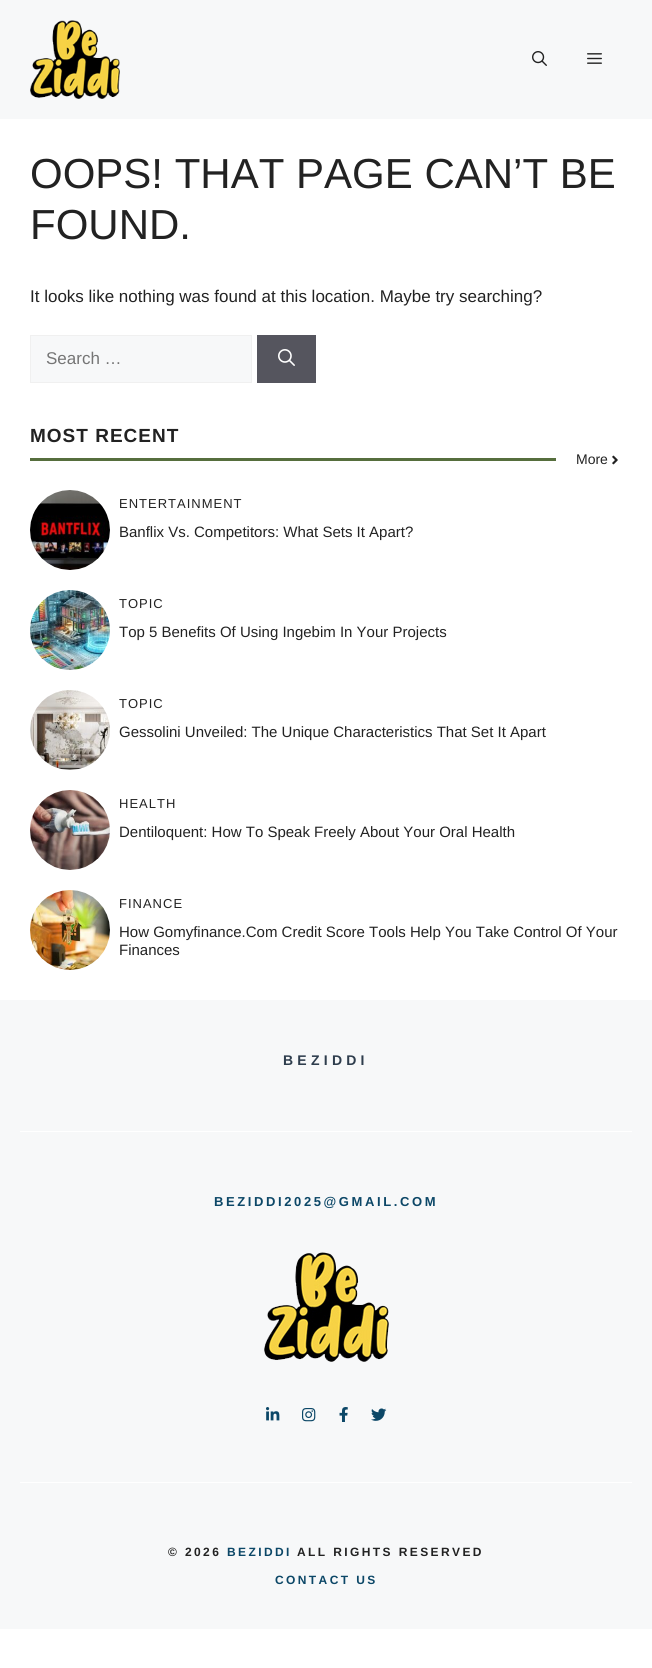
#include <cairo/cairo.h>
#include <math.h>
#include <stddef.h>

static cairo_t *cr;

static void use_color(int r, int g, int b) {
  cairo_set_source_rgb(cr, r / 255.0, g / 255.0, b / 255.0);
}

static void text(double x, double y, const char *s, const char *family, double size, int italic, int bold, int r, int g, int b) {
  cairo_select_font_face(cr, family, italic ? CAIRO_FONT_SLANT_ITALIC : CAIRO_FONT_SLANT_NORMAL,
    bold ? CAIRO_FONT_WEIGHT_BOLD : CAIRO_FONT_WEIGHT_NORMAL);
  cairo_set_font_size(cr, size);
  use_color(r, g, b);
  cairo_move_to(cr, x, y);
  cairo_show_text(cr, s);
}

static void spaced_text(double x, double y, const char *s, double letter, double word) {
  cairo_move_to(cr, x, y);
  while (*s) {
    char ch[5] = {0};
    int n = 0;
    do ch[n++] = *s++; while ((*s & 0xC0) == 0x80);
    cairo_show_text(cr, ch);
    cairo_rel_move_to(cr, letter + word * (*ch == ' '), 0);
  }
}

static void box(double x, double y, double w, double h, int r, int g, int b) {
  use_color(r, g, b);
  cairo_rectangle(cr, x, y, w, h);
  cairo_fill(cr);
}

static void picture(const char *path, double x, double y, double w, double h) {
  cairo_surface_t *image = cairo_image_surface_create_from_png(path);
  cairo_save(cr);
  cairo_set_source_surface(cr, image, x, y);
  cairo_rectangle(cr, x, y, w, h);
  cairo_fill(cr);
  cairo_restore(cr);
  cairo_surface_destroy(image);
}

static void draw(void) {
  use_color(255, 255, 255);
  cairo_paint(cr);
  box(0, 0, 652, 119, 247, 248, 249);
  picture("img_01.png", 30, 20, 90, 79);
  picture("img_02.png", 532, 51, 15, 15);
  picture("img_03.png", 587, 53, 15, 11);
  cairo_rectangle(cr, 30.5, 335.5, 221, 47);
  cairo_fill_preserve(cr);
  use_color(240, 240, 240);
  cairo_set_line_width(cr, 1);
  cairo_stroke(cr);
  box(257, 335, 59, 48, 85, 85, 94);
  picture("img_04.png", 278, 349, 17, 17);
  box(30, 458, 526, 3, 86, 110, 61);
  picture("img_05.png", 612, 455, 6, 10);
  picture("img_06.png", 30, 490, 80, 80);
  picture("img_07.png", 30, 590, 80, 80);
  picture("img_08.png", 30, 690, 80, 80);
  picture("img_09.png", 30, 790, 80, 80);
  picture("img_10.png", 30, 890, 80, 80);
  box(0, 1000, 652, 629, 247, 248, 249);
  box(20, 1131, 612, 1, 255, 255, 255);
  box(20, 1482, 612, 1, 255, 255, 255);
  picture("img_11.png", 264, 1252, 125, 110);
  picture("img_12.png", 266, 1407, 14, 14);
  picture("img_13.png", 302, 1408, 14, 14);
  picture("img_14.png", 339, 1407, 9, 15);
  picture("img_15.png", 371, 1408, 16, 13);
  text(30, 188, "OOPS! THAT PAGE CAN’T BE", "Liberation Sans", 42, 0, 0, 34, 34, 34);
  text(30, 239, "FOUND.", "Liberation Sans", 42, 0, 0, 34, 34, 34);
  text(30, 302, "It looks like nothing was found at this location. Maybe try searching?", "Liberation Sans", 17, 0, 0, 34, 34, 34);
  text(46, 364, "Search …", "Liberation Sans", 17, 0, 0, 117, 117, 117);
  cairo_select_font_face(cr, "Liberation Sans", CAIRO_FONT_SLANT_NORMAL, CAIRO_FONT_WEIGHT_BOLD);
  cairo_set_font_size(cr, 19);
  use_color(34, 34, 34);
  spaced_text(30, 442, "MOST RECENT", 1, 0);
  text(576, 464, "More", "Liberation Sans", 14, 0, 0, 34, 34, 34);
  cairo_set_font_size(cr, 13);
  spaced_text(119, 508, "ENTERTAINMENT", 1, 0);
  text(119, 537, "Banflix Vs. Competitors: What Sets It Apart?", "Liberation Sans", 15, 0, 0, 34, 34, 34);
  cairo_set_font_size(cr, 13);
  spaced_text(119, 608, "TOPIC", 1, 0);
  text(119, 637, "Top 5 Benefits Of Using Ingebim In Your Projects", "Liberation Sans", 15, 0, 0, 34, 34, 34);
  cairo_set_font_size(cr, 13);
  spaced_text(119, 708, "TOPIC", 1, 0);
  text(119, 737, "Gessolini Unveiled: The Unique Characteristics That Set It Apart", "Liberation Sans", 15, 0, 0, 34, 34, 34);
  cairo_set_font_size(cr, 13);
  spaced_text(119, 808, "HEALTH", 1, 0);
  text(119, 837, "Dentiloquent: How To Speak Freely About Your Oral Health", "Liberation Sans", 15, 0, 0, 34, 34, 34);
  cairo_set_font_size(cr, 13);
  spaced_text(119, 908, "FINANCE", 1, 0);
  text(119, 937, "How Gomyfinance.Com Credit Score Tools Help You Take Control Of Your", "Liberation Sans", 15, 0, 0, 34, 34, 34);
  text(119, 955, "Finances", "Liberation Sans", 15, 0, 0, 34, 34, 34);
  cairo_select_font_face(cr, "Liberation Sans", CAIRO_FONT_SLANT_NORMAL, CAIRO_FONT_WEIGHT_BOLD);
  cairo_set_font_size(cr, 14);
  use_color(46, 61, 77);
  spaced_text(283, 1065, "BEZIDDI", 4.25, 0);
  cairo_set_font_size(cr, 13);
  use_color(12, 71, 103);
  spaced_text(214, 1206, "BEZIDDI2025@GMAIL.COM", 2.6, 0);
  cairo_set_font_size(cr, 12);
  use_color(34, 34, 34);
  spaced_text(168, 1556, "© 2026", 2.4, 0);
  use_color(12, 71, 103);
  spaced_text(227, 1556, "BEZIDDI", 2.4, 0);
  use_color(34, 34, 34);
  spaced_text(297, 1556, "ALL RIGHTS RESERVED", 2.4, 0);
  use_color(12, 71, 103);
  spaced_text(275, 1584, "CONTACT US", 2.4, 0);
}

int main(void) {
  cairo_surface_t *surface = cairo_image_surface_create(CAIRO_FORMAT_RGB24, 652, 1668);
  cr = cairo_create(surface);
  cairo_font_options_t *options = cairo_font_options_create();
  cairo_font_options_set_hint_metrics(options, CAIRO_HINT_METRICS_OFF);
  cairo_font_options_set_hint_style(options, CAIRO_HINT_STYLE_NONE);
  cairo_set_font_options(cr, options);
  cairo_set_miter_limit(cr, 4);
  draw();
  cairo_surface_write_to_png(surface, "out.png");
  cairo_font_options_destroy(options);
  cairo_destroy(cr);
  cairo_surface_destroy(surface);
  return 0;
}
